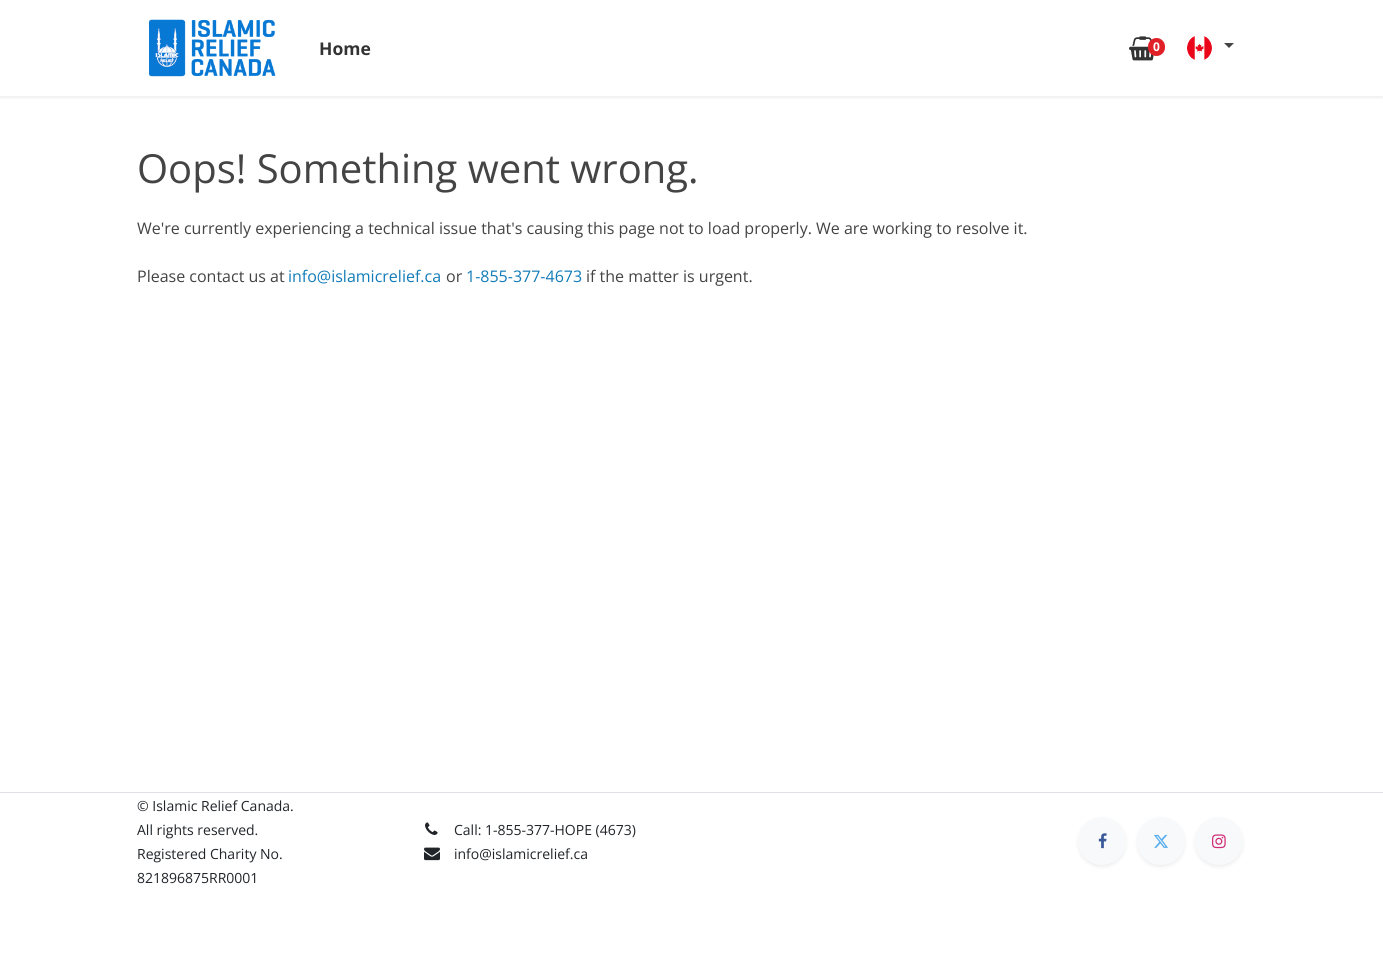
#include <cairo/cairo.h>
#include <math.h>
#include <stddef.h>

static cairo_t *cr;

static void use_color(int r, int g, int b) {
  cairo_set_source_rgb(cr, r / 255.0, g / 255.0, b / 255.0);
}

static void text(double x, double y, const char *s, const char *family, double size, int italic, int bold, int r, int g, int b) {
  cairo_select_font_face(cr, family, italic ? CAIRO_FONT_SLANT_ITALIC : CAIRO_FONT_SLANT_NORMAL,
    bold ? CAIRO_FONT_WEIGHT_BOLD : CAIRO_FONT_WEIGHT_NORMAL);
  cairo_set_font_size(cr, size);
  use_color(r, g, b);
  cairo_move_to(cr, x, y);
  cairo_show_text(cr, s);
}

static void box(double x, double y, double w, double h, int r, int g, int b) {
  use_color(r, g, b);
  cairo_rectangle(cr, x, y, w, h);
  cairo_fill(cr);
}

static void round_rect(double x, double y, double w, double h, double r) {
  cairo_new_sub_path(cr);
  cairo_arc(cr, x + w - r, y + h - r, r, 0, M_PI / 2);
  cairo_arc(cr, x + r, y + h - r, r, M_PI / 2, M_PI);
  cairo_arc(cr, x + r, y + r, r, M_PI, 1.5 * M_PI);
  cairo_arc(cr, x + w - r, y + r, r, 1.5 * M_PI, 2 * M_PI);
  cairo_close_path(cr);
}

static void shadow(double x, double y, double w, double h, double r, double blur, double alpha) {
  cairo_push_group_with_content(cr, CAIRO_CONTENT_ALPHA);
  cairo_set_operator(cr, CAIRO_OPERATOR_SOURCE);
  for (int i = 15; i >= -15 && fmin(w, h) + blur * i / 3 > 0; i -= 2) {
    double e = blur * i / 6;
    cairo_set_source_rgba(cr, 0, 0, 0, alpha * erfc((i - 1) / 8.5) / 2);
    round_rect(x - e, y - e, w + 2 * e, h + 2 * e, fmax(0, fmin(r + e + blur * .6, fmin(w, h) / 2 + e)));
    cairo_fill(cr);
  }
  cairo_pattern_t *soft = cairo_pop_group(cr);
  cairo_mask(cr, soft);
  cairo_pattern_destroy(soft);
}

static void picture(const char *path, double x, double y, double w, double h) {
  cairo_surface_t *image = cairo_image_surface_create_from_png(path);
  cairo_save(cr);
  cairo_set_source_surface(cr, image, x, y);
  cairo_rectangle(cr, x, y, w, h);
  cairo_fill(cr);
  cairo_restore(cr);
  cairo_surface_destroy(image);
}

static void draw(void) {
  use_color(255, 255, 255);
  cairo_paint(cr);
  cairo_save(cr);
  cairo_rectangle(cr, 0, 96, 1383, 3);
  cairo_clip(cr);
  use_color(0, 0, 0);
  shadow(0, 2, 1383, 96, 0, 2, 0.07);
  cairo_restore(cr);
  picture("img_01.png", 148, 19, 128, 58);
  picture("img_02.png", 1129, 36, 25, 25);
  use_color(225, 31, 38);
  round_rect(1148, 38, 17, 18, 8.5);
  cairo_fill(cr);
  picture("img_03.png", 1187, 36, 25, 24);
  use_color(68, 68, 68);
  cairo_new_path(cr);
  cairo_move_to(cr, 1224, 43);
  cairo_line_to(cr, 1234, 43);
  cairo_line_to(cr, 1229, 48);
  cairo_close_path(cr);
  cairo_fill(cr);
  box(0, 792, 1383, 1, 222, 226, 230);
  picture("img_04.png", 425, 822, 13, 13);
  picture("img_05.png", 424, 847, 16, 14);
  use_color(0, 0, 0);
  shadow(1078, 819, 48, 48, 24, 2, 0.07);
  use_color(248, 249, 250);
  cairo_arc(cr, 1102, 841, 24, 0, 2 * M_PI);
  cairo_fill(cr);
  picture("img_06.png", 1098, 833, 9, 16);
  use_color(0, 0, 0);
  shadow(1137, 819, 48, 48, 24, 2, 0.07);
  use_color(248, 249, 250);
  cairo_arc(cr, 1161, 841, 24, 0, 2 * M_PI);
  cairo_fill(cr);
  picture("img_07.png", 1154, 834, 14, 14);
  use_color(0, 0, 0);
  shadow(1195, 819, 48, 48, 24, 2, 0.07);
  use_color(248, 249, 250);
  cairo_arc(cr, 1219, 841, 24, 0, 2 * M_PI);
  cairo_fill(cr);
  picture("img_08.png", 1212, 834, 14, 15);
  text(319, 55, "Home", "Open Sans", 17.5, 0, 1, 51, 51, 51);
  text(1153, 51, "0", "Open Sans", 12, 0, 1, 255, 255, 255);
  text(137, 183, "Oops! Something went wrong.", "Open Sans", 40, 0, 0, 68, 68, 68);
  text(137, 234, "We're currently experiencing a technical issue that's causing this page not to load properly. We are working to resolve it.", "Open Sans", 16, 0, 0, 68, 68, 68);
  text(137, 282, "Please contact us at", "Open Sans", 16, 0, 0, 68, 68, 68);
  text(288, 282, "info@islamicrelief.ca", "Open Sans", 16, 0, 0, 18, 124, 184);
  text(446, 282, "or", "Open Sans", 16, 0, 0, 68, 68, 68);
  text(466, 282, "1-855-377-4673", "Open Sans", 16, 0, 0, 18, 124, 184);
  text(586, 282, "if the matter is urgent.", "Open Sans", 16, 0, 0, 68, 68, 68);
  text(137, 811, "© Islamic Relief Canada.", "Open Sans", 14, 0, 0, 33, 37, 41);
  text(137, 835, "All rights reserved.", "Open Sans", 14, 0, 0, 33, 37, 41);
  text(137, 859, "Registered Charity No.", "Open Sans", 14, 0, 0, 33, 37, 41);
  text(137, 883, "821896875RR0001", "Open Sans", 14, 0, 0, 33, 37, 41);
  text(454, 835, "Call: 1-855-377-HOPE (4673)", "Open Sans", 14, 0, 0, 33, 37, 41);
  text(454, 859, "info@islamicrelief.ca", "Open Sans", 14, 0, 0, 33, 37, 41);
}

int main(void) {
  cairo_surface_t *surface = cairo_image_surface_create(CAIRO_FORMAT_RGB24, 1383, 973);
  cr = cairo_create(surface);
  cairo_font_options_t *options = cairo_font_options_create();
  cairo_font_options_set_hint_metrics(options, CAIRO_HINT_METRICS_OFF);
  cairo_font_options_set_hint_style(options, CAIRO_HINT_STYLE_NONE);
  cairo_set_font_options(cr, options);
  cairo_set_miter_limit(cr, 4);
  draw();
  cairo_surface_write_to_png(surface, "out.png");
  cairo_font_options_destroy(options);
  cairo_destroy(cr);
  cairo_surface_destroy(surface);
  return 0;
}
